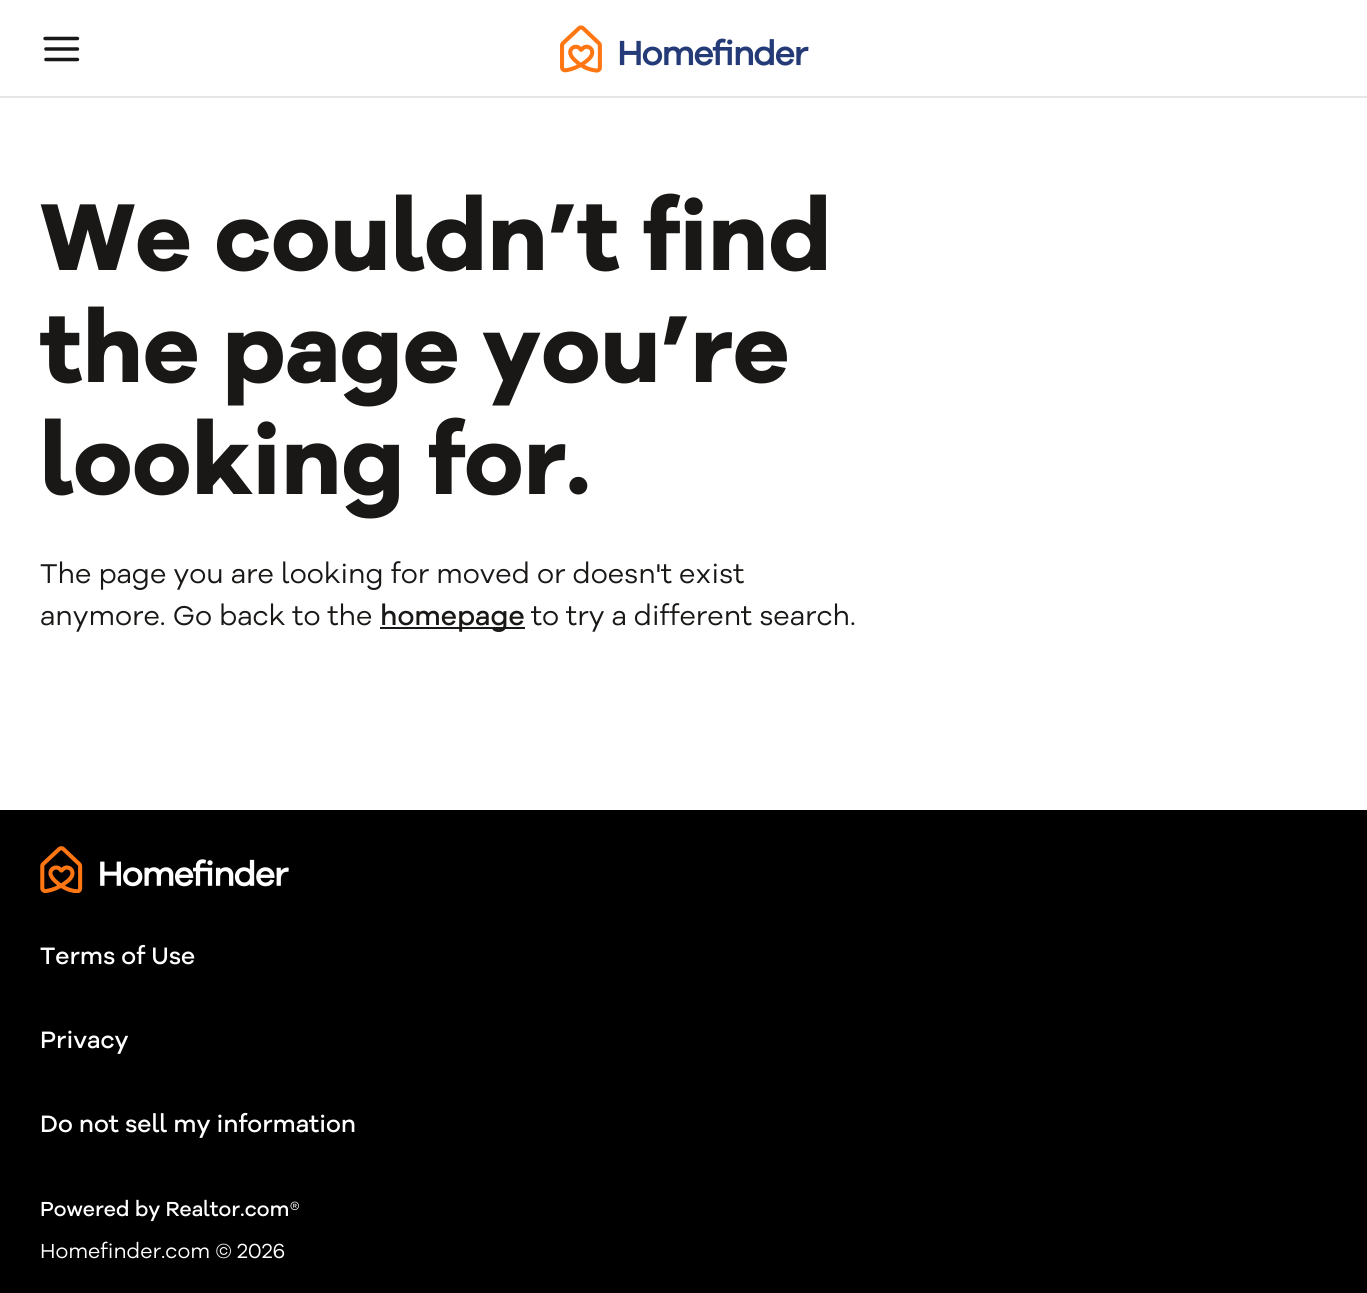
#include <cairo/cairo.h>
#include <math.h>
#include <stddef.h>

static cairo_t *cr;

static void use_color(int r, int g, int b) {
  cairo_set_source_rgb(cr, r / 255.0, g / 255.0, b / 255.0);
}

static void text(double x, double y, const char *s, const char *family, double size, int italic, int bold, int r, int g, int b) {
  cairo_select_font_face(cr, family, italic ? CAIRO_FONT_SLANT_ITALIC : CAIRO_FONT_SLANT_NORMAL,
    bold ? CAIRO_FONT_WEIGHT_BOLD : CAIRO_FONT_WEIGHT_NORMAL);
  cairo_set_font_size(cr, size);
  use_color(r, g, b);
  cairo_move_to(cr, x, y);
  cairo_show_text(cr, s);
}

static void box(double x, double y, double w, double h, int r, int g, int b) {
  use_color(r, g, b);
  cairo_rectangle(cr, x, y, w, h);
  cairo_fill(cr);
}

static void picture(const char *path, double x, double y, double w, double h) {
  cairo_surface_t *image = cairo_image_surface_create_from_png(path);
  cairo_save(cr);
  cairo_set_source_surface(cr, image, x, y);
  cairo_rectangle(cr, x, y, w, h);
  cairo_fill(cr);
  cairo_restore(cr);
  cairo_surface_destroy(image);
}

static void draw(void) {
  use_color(255, 255, 255);
  cairo_paint(cr);
  picture("img_01.png", 43, 36, 37, 26);
  picture("img_02.png", 560, 25, 249, 48);
  box(0, 96, 1367, 2, 230, 230, 230);
  box(380, 627, 145, 2, 26, 24, 22);
  box(0, 810, 1367, 483, 0, 0, 0);
  picture("img_03.png", 40, 846, 249, 47);
  text(40, 270, "We couldn’t find", "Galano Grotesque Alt", 98, 0, 1, 26, 24, 22);
  text(40, 382, "the page you’re", "Galano Grotesque Alt", 98, 0, 1, 26, 24, 22);
  text(40, 494, "looking for.", "Galano Grotesque Alt", 98, 0, 1, 26, 24, 22);
  text(40, 583, "The page you are looking for moved or doesn't exist", "Galano Grotesque Alt", 28, 0, 0, 26, 24, 22);
  text(40, 625, "anymore. Go back to the", "Galano Grotesque Alt", 28, 0, 0, 26, 24, 22);
  text(380, 625, "homepage", "Galano Grotesque Alt Medium", 28, 0, 0, 26, 24, 22);
  text(531, 625, "to try a different search.", "Galano Grotesque Alt", 28, 0, 0, 26, 24, 22);
  text(40, 964, "Terms of Use", "Galano Grotesque Alt Medium", 24.5, 0, 0, 255, 255, 255);
  text(40, 1048, "Privacy", "Galano Grotesque Alt Medium", 24.5, 0, 0, 255, 255, 255);
  text(40, 1132, "Do not sell my information", "Galano Grotesque Alt Medium", 24.5, 0, 0, 255, 255, 255);
  text(40, 1216, "Powered by Realtor.com®", "Galano Grotesque Alt Medium", 21, 0, 0, 255, 255, 255);
  text(40, 1258, "Homefinder.com © 2026", "Galano Grotesque Alt", 21, 0, 0, 255, 255, 255);
}

int main(void) {
  cairo_surface_t *surface = cairo_image_surface_create(CAIRO_FORMAT_RGB24, 1367, 1293);
  cr = cairo_create(surface);
  cairo_font_options_t *options = cairo_font_options_create();
  cairo_font_options_set_hint_metrics(options, CAIRO_HINT_METRICS_OFF);
  cairo_font_options_set_hint_style(options, CAIRO_HINT_STYLE_NONE);
  cairo_set_font_options(cr, options);
  cairo_set_miter_limit(cr, 4);
  draw();
  cairo_surface_write_to_png(surface, "out.png");
  cairo_font_options_destroy(options);
  cairo_destroy(cr);
  cairo_surface_destroy(surface);
  return 0;
}
